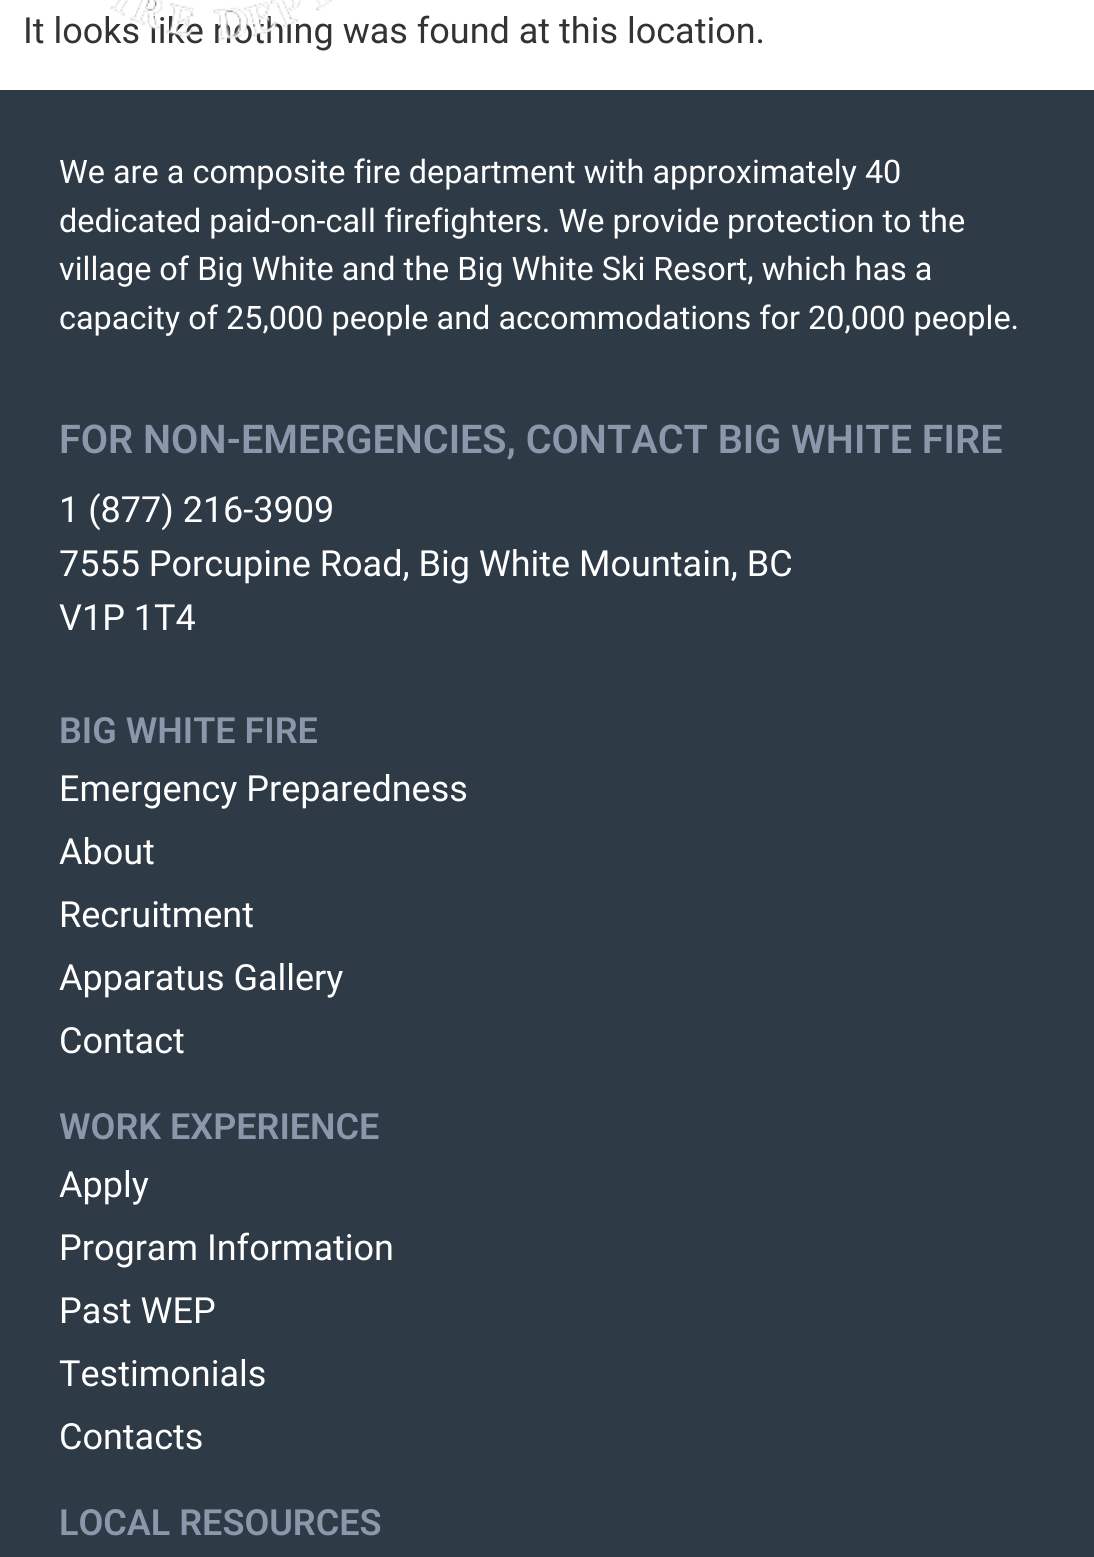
#include <cairo/cairo.h>
#include <math.h>
#include <stddef.h>

static cairo_t *cr;

static void use_color(int r, int g, int b) {
  cairo_set_source_rgb(cr, r / 255.0, g / 255.0, b / 255.0);
}

static void text(double x, double y, const char *s, const char *family, double size, int italic, int bold, int r, int g, int b) {
  cairo_select_font_face(cr, family, italic ? CAIRO_FONT_SLANT_ITALIC : CAIRO_FONT_SLANT_NORMAL,
    bold ? CAIRO_FONT_WEIGHT_BOLD : CAIRO_FONT_WEIGHT_NORMAL);
  cairo_set_font_size(cr, size);
  use_color(r, g, b);
  cairo_move_to(cr, x, y);
  cairo_show_text(cr, s);
}

static void box(double x, double y, double w, double h, int r, int g, int b) {
  use_color(r, g, b);
  cairo_rectangle(cr, x, y, w, h);
  cairo_fill(cr);
}

static void picture(const char *path, double x, double y, double w, double h) {
  cairo_surface_t *image = cairo_image_surface_create_from_png(path);
  cairo_save(cr);
  cairo_set_source_surface(cr, image, x, y);
  cairo_rectangle(cr, x, y, w, h);
  cairo_fill(cr);
  cairo_restore(cr);
  cairo_surface_destroy(image);
}

static void draw(void) {
  use_color(255, 255, 255);
  cairo_paint(cr);
  box(0, 90, 1094, 1467, 46, 58, 70);
  text(23, 43, "It looks like nothing was found at this location.", "Roboto", 36, 0, 0, 51, 51, 51);
  picture("img_01.png", 110, 0, 223, 41);
  text(59, 183, "We are a composite fire department with approximately 40", "Roboto", 32.4, 0, 0, 255, 255, 255);
  text(59, 232, "dedicated paid-on-call firefighters. We provide protection to the", "Roboto", 32.4, 0, 0, 255, 255, 255);
  text(59, 280, "village of Big White and the Big White Ski Resort, which has a", "Roboto", 32.4, 0, 0, 255, 255, 255);
  text(59, 329, "capacity of 25,000 people and accommodations for 20,000 people.", "Roboto", 32.4, 0, 0, 255, 255, 255);
  text(59, 453, "FOR NON-EMERGENCIES, CONTACT BIG WHITE FIRE", "Roboto SemiBold", 39.6, 0, 0, 139, 151, 171);
  text(59, 522, "1 (877) 216-3909", "Roboto", 36, 0, 0, 255, 255, 255);
  text(59, 576, "7555 Porcupine Road, Big White Mountain, BC", "Roboto", 36, 0, 0, 255, 255, 255);
  text(59, 630, "V1P 1T4", "Roboto", 36, 0, 0, 255, 255, 255);
  text(59, 743, "BIG WHITE FIRE", "Roboto SemiBold", 36, 0, 0, 139, 151, 171);
  text(59, 801, "Emergency Preparedness", "Roboto", 36, 0, 0, 255, 255, 255);
  text(59, 864, "About", "Roboto", 36, 0, 0, 255, 255, 255);
  text(59, 927, "Recruitment", "Roboto", 36, 0, 0, 255, 255, 255);
  text(59, 990, "Apparatus Gallery", "Roboto", 36, 0, 0, 255, 255, 255);
  text(59, 1053, "Contact", "Roboto", 36, 0, 0, 255, 255, 255);
  text(59, 1139, "WORK EXPERIENCE", "Roboto SemiBold", 36, 0, 0, 139, 151, 171);
  text(59, 1197, "Apply", "Roboto", 36, 0, 0, 255, 255, 255);
  text(59, 1260, "Program Information", "Roboto", 36, 0, 0, 255, 255, 255);
  text(59, 1323, "Past WEP", "Roboto", 36, 0, 0, 255, 255, 255);
  text(59, 1386, "Testimonials", "Roboto", 36, 0, 0, 255, 255, 255);
  text(59, 1449, "Contacts", "Roboto", 36, 0, 0, 255, 255, 255);
  text(59, 1535, "LOCAL RESOURCES", "Roboto SemiBold", 36, 0, 0, 139, 151, 171);
}

int main(void) {
  cairo_surface_t *surface = cairo_image_surface_create(CAIRO_FORMAT_RGB24, 1094, 1557);
  cr = cairo_create(surface);
  cairo_font_options_t *options = cairo_font_options_create();
  cairo_font_options_set_hint_metrics(options, CAIRO_HINT_METRICS_OFF);
  cairo_font_options_set_hint_style(options, CAIRO_HINT_STYLE_NONE);
  cairo_set_font_options(cr, options);
  cairo_set_miter_limit(cr, 4);
  draw();
  cairo_surface_write_to_png(surface, "out.png");
  cairo_font_options_destroy(options);
  cairo_destroy(cr);
  cairo_surface_destroy(surface);
  return 0;
}
